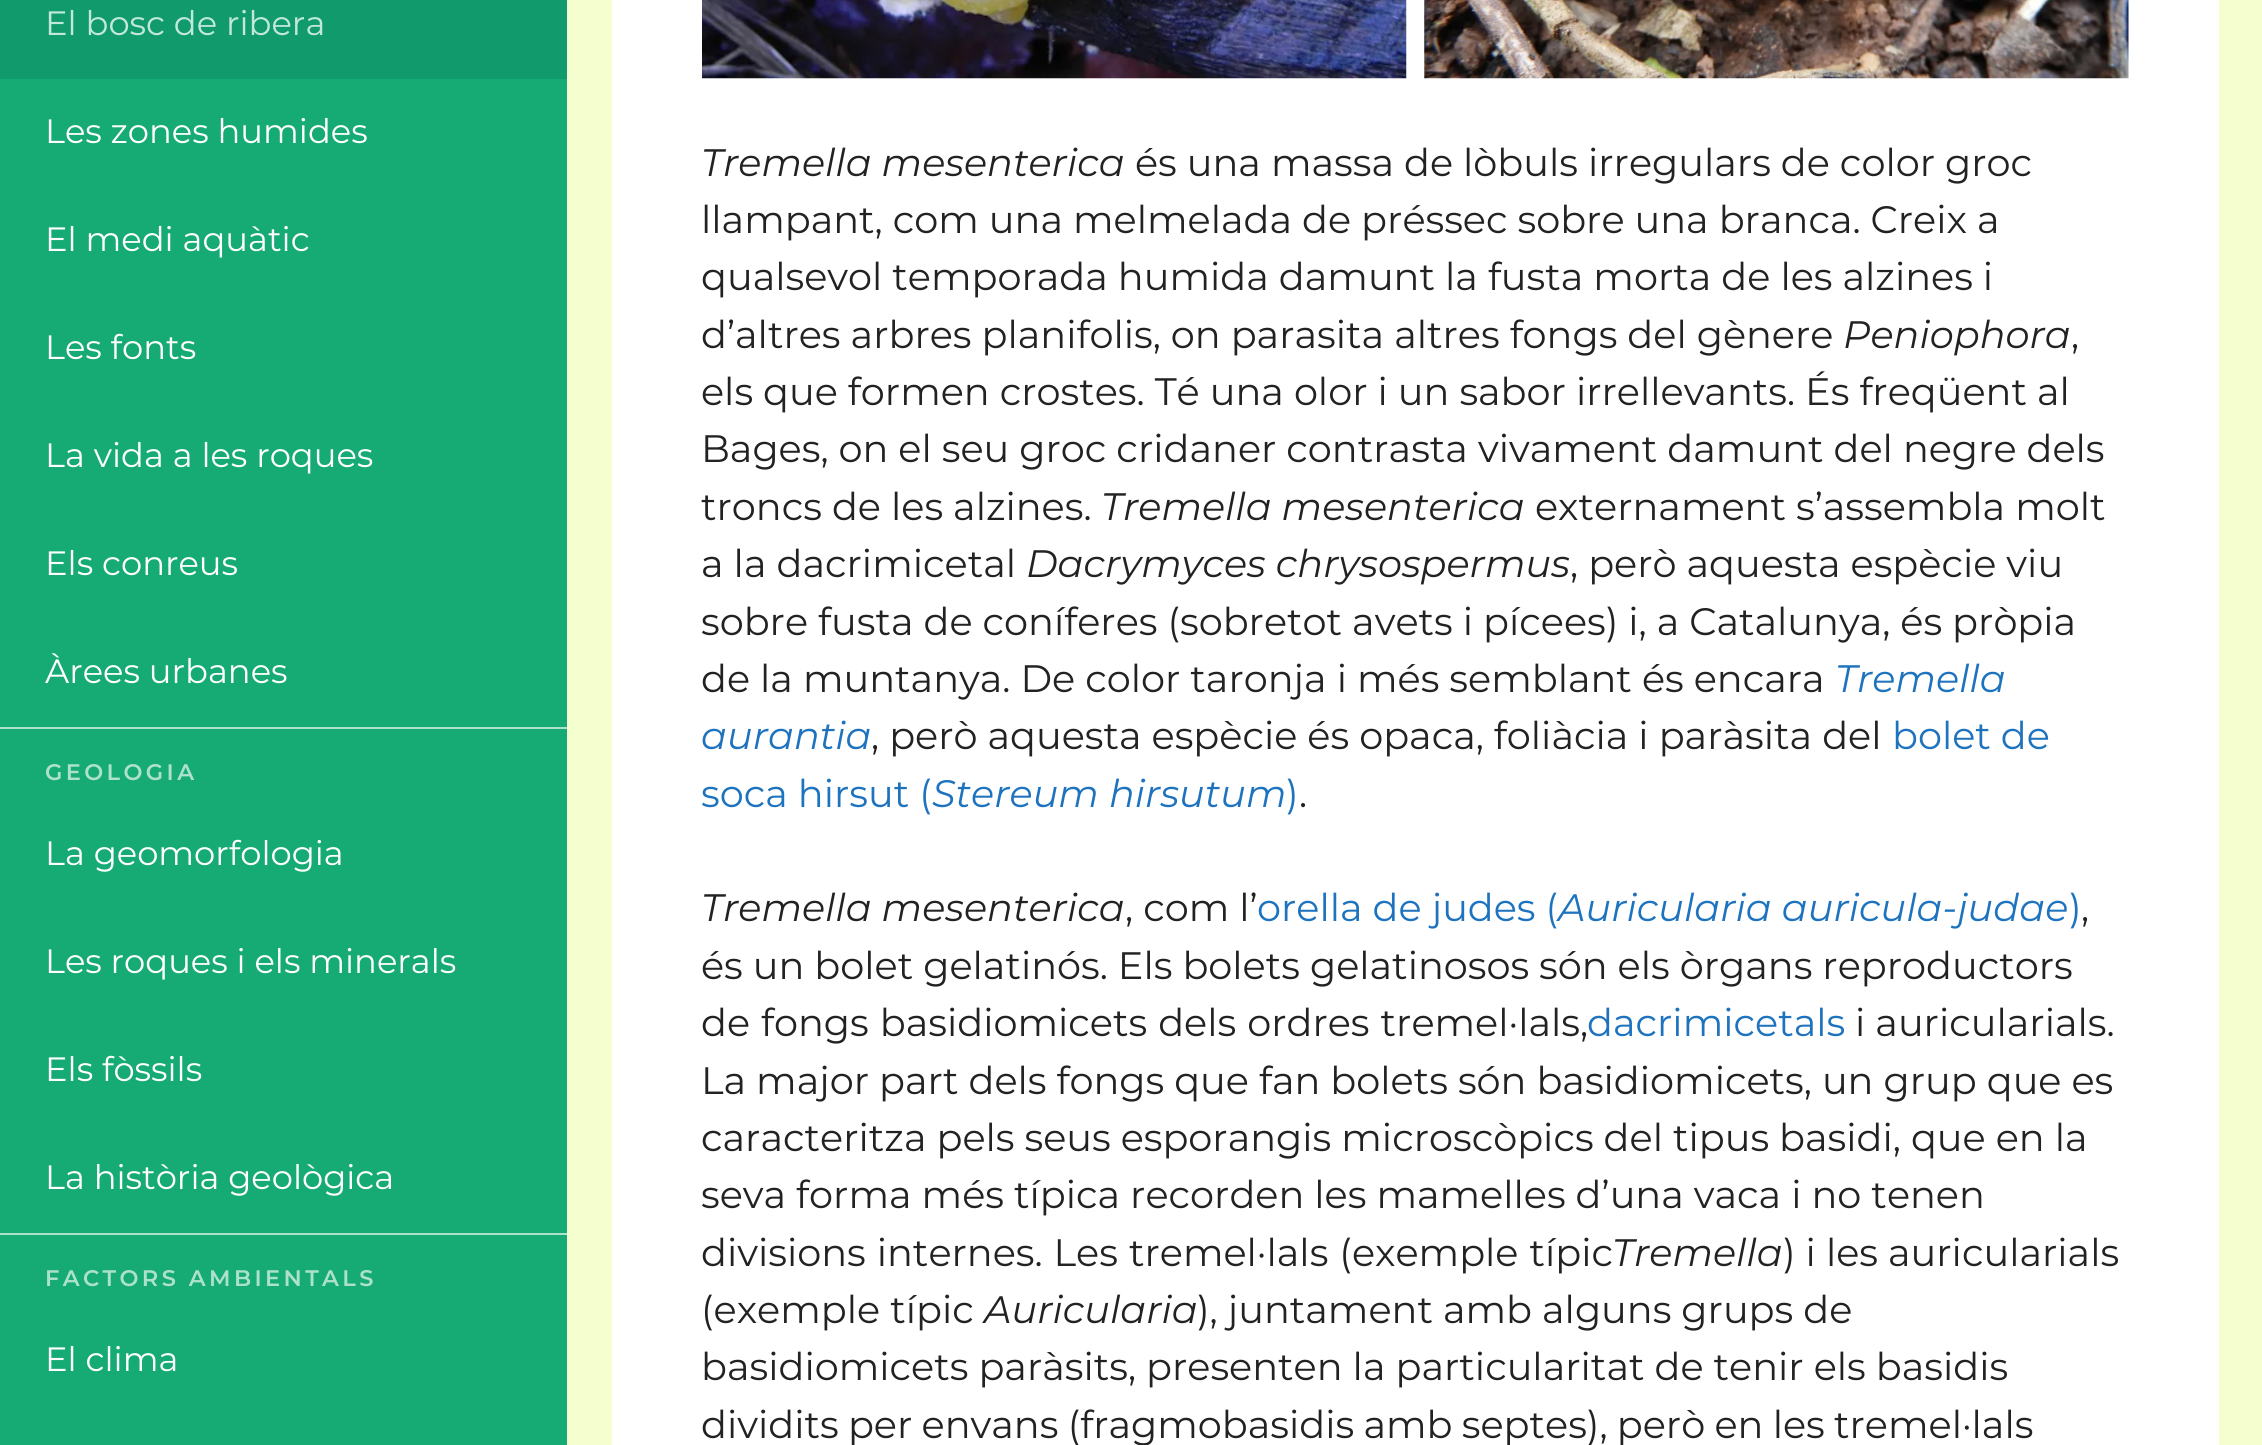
#include <cairo/cairo.h>
#include <math.h>
#include <stddef.h>

static cairo_t *cr;

static void use_color(int r, int g, int b) {
  cairo_set_source_rgb(cr, r / 255.0, g / 255.0, b / 255.0);
}

static void text(double x, double y, const char *s, const char *family, double size, int italic, int bold, int r, int g, int b) {
  cairo_select_font_face(cr, family, italic ? CAIRO_FONT_SLANT_ITALIC : CAIRO_FONT_SLANT_NORMAL,
    bold ? CAIRO_FONT_WEIGHT_BOLD : CAIRO_FONT_WEIGHT_NORMAL);
  cairo_set_font_size(cr, size);
  use_color(r, g, b);
  cairo_move_to(cr, x, y);
  cairo_show_text(cr, s);
}

static void spaced_text(double x, double y, const char *s, double letter, double word) {
  cairo_move_to(cr, x, y);
  while (*s) {
    char ch[5] = {0};
    int n = 0;
    do ch[n++] = *s++; while ((*s & 0xC0) == 0x80);
    cairo_show_text(cr, ch);
    cairo_rel_move_to(cr, letter + word * (*ch == ' '), 0);
  }
}

static void box(double x, double y, double w, double h, int r, int g, int b) {
  use_color(r, g, b);
  cairo_rectangle(cr, x, y, w, h);
  cairo_fill(cr);
}

static void picture(const char *path, double x, double y, double w, double h) {
  cairo_surface_t *image = cairo_image_surface_create_from_png(path);
  cairo_save(cr);
  cairo_set_source_surface(cr, image, x, y);
  cairo_rectangle(cr, x, y, w, h);
  cairo_fill(cr);
  cairo_restore(cr);
  cairo_surface_destroy(image);
}

static void draw(void) {
  use_color(244, 254, 207);
  cairo_paint(cr);
  box(0, 79, 567, 1366, 22, 170, 116);
  box(0, 0, 567, 79, 17, 155, 109);
  box(0, 727, 567, 2, 173, 225, 206);
  box(0, 1233, 567, 2, 173, 225, 206);
  box(612, 0, 1607, 1445, 255, 255, 255);
  picture("img_01.png", 702, 0, 705, 79);
  picture("img_02.png", 1424, 0, 705, 79);
  text(45, 35, "El bosc de ribera", "Montserrat", 33.75, 0, 0, 194, 232, 222);
  text(45, 143, "Les zones humides", "Montserrat", 33.75, 0, 0, 255, 255, 255);
  text(45, 251, "El medi aquàtic", "Montserrat", 33.75, 0, 0, 255, 255, 255);
  text(45, 359, "Les fonts", "Montserrat", 33.75, 0, 0, 255, 255, 255);
  text(45, 467, "La vida a les roques", "Montserrat", 33.75, 0, 0, 255, 255, 255);
  text(45, 575, "Els conreus", "Montserrat", 33.75, 0, 0, 255, 255, 255);
  text(45, 683, "Àrees urbanes", "Montserrat", 33.75, 0, 0, 255, 255, 255);
  cairo_select_font_face(cr, "Montserrat SemiBold", CAIRO_FONT_SLANT_NORMAL, CAIRO_FONT_WEIGHT_NORMAL);
  cairo_set_font_size(cr, 22.5);
  use_color(173, 225, 206);
  spaced_text(45, 780, "GEOLOGIA", 3.4, 0);
  text(45, 865, "La geomorfologia", "Montserrat", 33.75, 0, 0, 255, 255, 255);
  text(45, 973, "Les roques i els minerals", "Montserrat", 33.75, 0, 0, 255, 255, 255);
  text(45, 1081, "Els fòssils", "Montserrat", 33.75, 0, 0, 255, 255, 255);
  text(45, 1189, "La història geològica", "Montserrat", 33.75, 0, 0, 255, 255, 255);
  cairo_select_font_face(cr, "Montserrat SemiBold", CAIRO_FONT_SLANT_NORMAL, CAIRO_FONT_WEIGHT_NORMAL);
  cairo_set_font_size(cr, 22.5);
  use_color(173, 225, 206);
  spaced_text(45, 1286, "FACTORS AMBIENTALS", 3.4, 0);
  text(45, 1371, "El clima", "Montserrat", 33.75, 0, 0, 255, 255, 255);
  text(701, 176, "Tremella mesenterica", "Montserrat", 38.25, 1, 0, 34, 34, 34);
  text(1135, 176, "és una massa de lòbuls irregulars de color groc", "Montserrat", 38.25, 0, 0, 34, 34, 34);
  text(701, 233, "llampant, com una melmelada de préssec sobre una branca. Creix a", "Montserrat", 38.25, 0, 0, 34, 34, 34);
  text(701, 290, "qualsevol temporada humida damunt la fusta morta de les alzines i", "Montserrat", 38.25, 0, 0, 34, 34, 34);
  text(701, 348, "d’altres arbres planifolis, on parasita altres fongs del gènere", "Montserrat", 38.25, 0, 0, 34, 34, 34);
  text(1843, 348, "Peniophora", "Montserrat", 38.25, 1, 0, 34, 34, 34);
  text(2071, 348, ",", "Montserrat", 38.25, 0, 0, 34, 34, 34);
  text(701, 405, "els que formen crostes. Té una olor i un sabor irrellevants. És freqüent al", "Montserrat", 38.25, 0, 0, 34, 34, 34);
  text(701, 462, "Bages, on el seu groc cridaner contrasta vivament damunt del negre dels", "Montserrat", 38.25, 0, 0, 34, 34, 34);
  text(701, 520, "troncs de les alzines.", "Montserrat", 38.25, 0, 0, 34, 34, 34);
  text(1101, 520, "Tremella mesenterica", "Montserrat", 38.25, 1, 0, 34, 34, 34);
  text(1535, 520, "externament s’assembla molt", "Montserrat", 38.25, 0, 0, 34, 34, 34);
  text(701, 577, "a la dacrimicetal", "Montserrat", 38.25, 0, 0, 34, 34, 34);
  text(1026, 577, "Dacrymyces chrysospermus", "Montserrat", 38.25, 1, 0, 34, 34, 34);
  text(1570, 577, ", però aquesta espècie viu", "Montserrat", 38.25, 0, 0, 34, 34, 34);
  text(701, 635, "sobre fusta de coníferes (sobretot avets i pícees) i, a Catalunya, és pròpia", "Montserrat", 38.25, 0, 0, 34, 34, 34);
  text(701, 692, "de la muntanya. De color taronja i més semblant és encara", "Montserrat", 38.25, 0, 0, 34, 34, 34);
  text(1835, 692, "Tremella", "Montserrat", 38.25, 1, 0, 30, 115, 190);
  text(701, 749, "aurantia", "Montserrat", 38.25, 1, 0, 30, 115, 190);
  text(871, 749, ", però aquesta espècie és opaca, foliàcia i paràsita del", "Montserrat", 38.25, 0, 0, 34, 34, 34);
  text(1892, 749, "bolet de", "Montserrat", 38.25, 0, 0, 30, 115, 190);
  text(701, 807, "soca hirsut (", "Montserrat", 38.25, 0, 0, 30, 115, 190);
  text(932, 807, "Stereum hirsutum", "Montserrat", 38.25, 1, 0, 30, 115, 190);
  text(1286, 807, ")", "Montserrat", 38.25, 0, 0, 30, 115, 190);
  text(1299, 807, ".", "Montserrat", 38.25, 0, 0, 34, 34, 34);
  text(701, 921, "Tremella mesenterica", "Montserrat", 38.25, 1, 0, 34, 34, 34);
  text(1125, 921, ", com l’", "Montserrat", 38.25, 0, 0, 34, 34, 34);
  text(1257, 921, "orella de judes (", "Montserrat", 38.25, 0, 0, 30, 115, 190);
  text(1558, 921, "Auricularia auricula-judae", "Montserrat", 38.25, 1, 0, 30, 115, 190);
  text(2069, 921, ")", "Montserrat", 38.25, 0, 0, 30, 115, 190);
  text(2081, 921, ",", "Montserrat", 38.25, 0, 0, 34, 34, 34);
  text(701, 979, "és un bolet gelatinós. Els bolets gelatinosos són els òrgans reproductors", "Montserrat", 38.25, 0, 0, 34, 34, 34);
  spaced_text(701, 1036, "de fongs basidiomicets dels ordres tremel·lals,", 0, 1);
  text(1587, 1036, "dacrimicetals", "Montserrat", 38.25, 0, 0, 30, 115, 190);
  text(1855, 1036, "i auricularials.", "Montserrat", 38.25, 0, 0, 34, 34, 34);
  text(701, 1094, "La major part dels fongs que fan bolets són basidiomicets, un grup que es", "Montserrat", 38.25, 0, 0, 34, 34, 34);
  text(701, 1151, "caracteritza pels seus esporangis microscòpics del tipus basidi, que en la", "Montserrat", 38.25, 0, 0, 34, 34, 34);
  text(701, 1208, "seva forma més típica recorden les mamelles d’una vaca i no tenen", "Montserrat", 38.25, 0, 0, 34, 34, 34);
  spaced_text(701, 1266, "divisions internes. Les tremel·lals (exemple típic", 0, 1);
  text(1612, 1266, "Tremella", "Montserrat", 38.25, 1, 0, 34, 34, 34);
  text(1783, 1266, ") i les auricularials", "Montserrat", 38.25, 0, 0, 34, 34, 34);
  text(701, 1323, "(exemple típic", "Montserrat", 38.25, 0, 0, 34, 34, 34);
  text(984, 1323, "Auricularia", "Montserrat", 38.25, 1, 0, 34, 34, 34);
  text(1197, 1323, "), juntament amb alguns grups de", "Montserrat", 38.25, 0, 0, 34, 34, 34);
  text(701, 1380, "basidiomicets paràsits, presenten la particularitat de tenir els basidis", "Montserrat", 38.25, 0, 0, 34, 34, 34);
  spaced_text(701, 1438, "dividits per envans (fragmobasidis amb septes), però en les tremel·lals", 0, -0.75);
}

int main(void) {
  cairo_surface_t *surface = cairo_image_surface_create(CAIRO_FORMAT_RGB24, 2262, 1445);
  cr = cairo_create(surface);
  cairo_font_options_t *options = cairo_font_options_create();
  cairo_font_options_set_hint_metrics(options, CAIRO_HINT_METRICS_OFF);
  cairo_font_options_set_hint_style(options, CAIRO_HINT_STYLE_NONE);
  cairo_set_font_options(cr, options);
  cairo_set_miter_limit(cr, 4);
  draw();
  cairo_surface_write_to_png(surface, "out.png");
  cairo_font_options_destroy(options);
  cairo_destroy(cr);
  cairo_surface_destroy(surface);
  return 0;
}
